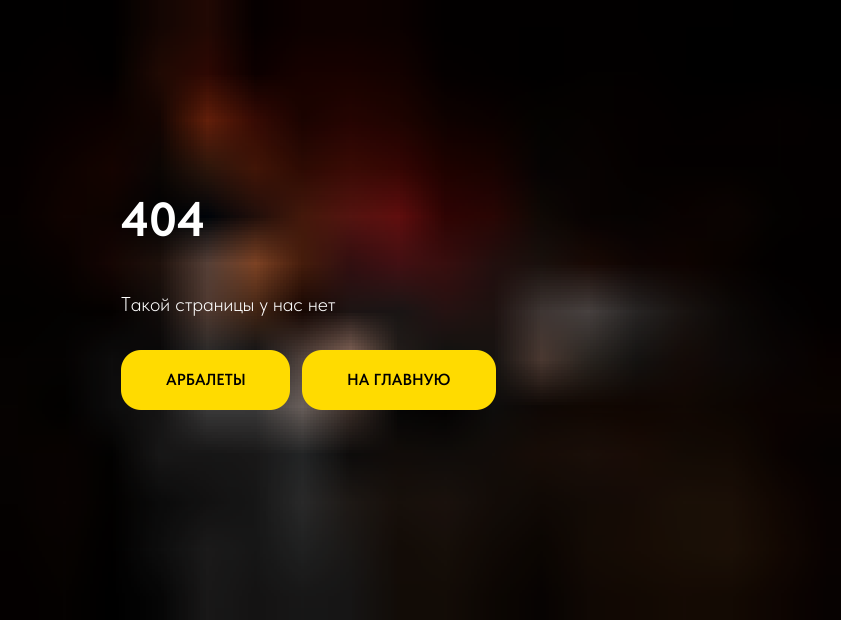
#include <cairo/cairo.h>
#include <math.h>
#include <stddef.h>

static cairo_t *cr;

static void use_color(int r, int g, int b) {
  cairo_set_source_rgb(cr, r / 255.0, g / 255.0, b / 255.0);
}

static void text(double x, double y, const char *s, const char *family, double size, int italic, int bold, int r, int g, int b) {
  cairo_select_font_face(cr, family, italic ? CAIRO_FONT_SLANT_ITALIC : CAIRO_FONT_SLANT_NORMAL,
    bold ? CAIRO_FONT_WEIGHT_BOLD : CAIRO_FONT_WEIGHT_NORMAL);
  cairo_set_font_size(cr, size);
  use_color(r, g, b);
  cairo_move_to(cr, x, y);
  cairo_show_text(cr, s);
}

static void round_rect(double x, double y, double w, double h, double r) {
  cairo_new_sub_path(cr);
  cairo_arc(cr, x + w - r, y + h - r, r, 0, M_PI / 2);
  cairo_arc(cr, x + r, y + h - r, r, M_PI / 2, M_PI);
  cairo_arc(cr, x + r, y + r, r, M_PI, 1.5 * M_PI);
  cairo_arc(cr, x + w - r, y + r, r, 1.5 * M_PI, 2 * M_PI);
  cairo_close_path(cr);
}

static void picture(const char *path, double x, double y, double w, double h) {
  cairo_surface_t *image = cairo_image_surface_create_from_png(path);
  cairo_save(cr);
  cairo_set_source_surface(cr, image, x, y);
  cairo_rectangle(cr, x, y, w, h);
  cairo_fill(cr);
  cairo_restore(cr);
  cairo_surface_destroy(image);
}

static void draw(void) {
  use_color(255, 255, 255);
  cairo_paint(cr);
  picture("img_01.png", 0, 0, 841, 620);
  use_color(255, 219, 0);
  round_rect(121, 350, 169, 60, 20);
  cairo_fill(cr);
  round_rect(302, 350, 194, 60, 20);
  cairo_fill(cr);
  text(121, 236, "404", "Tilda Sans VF", 48, 0, 1, 255, 255, 255);
  text(121, 311, "Такой страницы у нас нет", "Tilda Sans VF Light", 20, 0, 0, 255, 255, 255);
  text(166, 385, "АРБАЛЕТЫ", "Tilda Sans VF SemiBold", 16, 0, 0, 0, 0, 0);
  text(347, 385, "НА ГЛАВНУЮ", "Tilda Sans VF SemiBold", 16, 0, 0, 0, 0, 0);
}

int main(void) {
  cairo_surface_t *surface = cairo_image_surface_create(CAIRO_FORMAT_RGB24, 841, 620);
  cr = cairo_create(surface);
  cairo_font_options_t *options = cairo_font_options_create();
  cairo_font_options_set_hint_metrics(options, CAIRO_HINT_METRICS_OFF);
  cairo_font_options_set_hint_style(options, CAIRO_HINT_STYLE_NONE);
  cairo_set_font_options(cr, options);
  cairo_set_miter_limit(cr, 4);
  draw();
  cairo_surface_write_to_png(surface, "out.png");
  cairo_font_options_destroy(options);
  cairo_destroy(cr);
  cairo_surface_destroy(surface);
  return 0;
}
